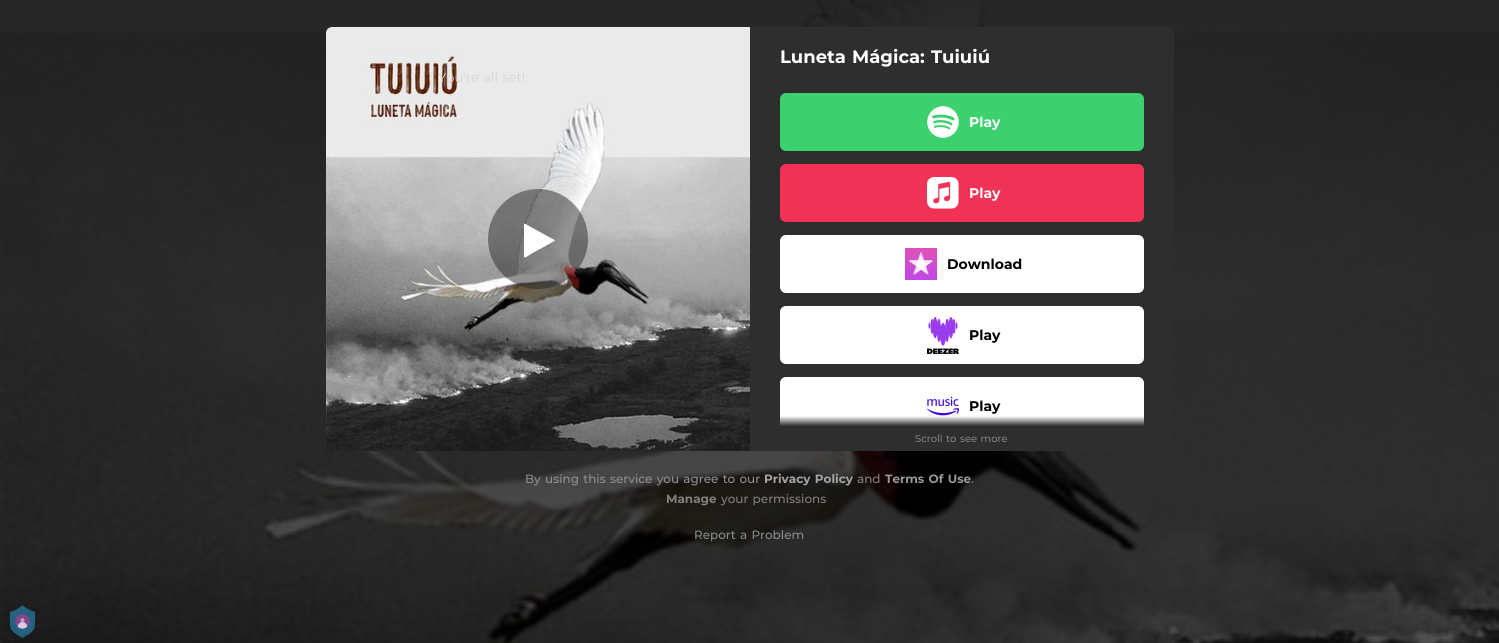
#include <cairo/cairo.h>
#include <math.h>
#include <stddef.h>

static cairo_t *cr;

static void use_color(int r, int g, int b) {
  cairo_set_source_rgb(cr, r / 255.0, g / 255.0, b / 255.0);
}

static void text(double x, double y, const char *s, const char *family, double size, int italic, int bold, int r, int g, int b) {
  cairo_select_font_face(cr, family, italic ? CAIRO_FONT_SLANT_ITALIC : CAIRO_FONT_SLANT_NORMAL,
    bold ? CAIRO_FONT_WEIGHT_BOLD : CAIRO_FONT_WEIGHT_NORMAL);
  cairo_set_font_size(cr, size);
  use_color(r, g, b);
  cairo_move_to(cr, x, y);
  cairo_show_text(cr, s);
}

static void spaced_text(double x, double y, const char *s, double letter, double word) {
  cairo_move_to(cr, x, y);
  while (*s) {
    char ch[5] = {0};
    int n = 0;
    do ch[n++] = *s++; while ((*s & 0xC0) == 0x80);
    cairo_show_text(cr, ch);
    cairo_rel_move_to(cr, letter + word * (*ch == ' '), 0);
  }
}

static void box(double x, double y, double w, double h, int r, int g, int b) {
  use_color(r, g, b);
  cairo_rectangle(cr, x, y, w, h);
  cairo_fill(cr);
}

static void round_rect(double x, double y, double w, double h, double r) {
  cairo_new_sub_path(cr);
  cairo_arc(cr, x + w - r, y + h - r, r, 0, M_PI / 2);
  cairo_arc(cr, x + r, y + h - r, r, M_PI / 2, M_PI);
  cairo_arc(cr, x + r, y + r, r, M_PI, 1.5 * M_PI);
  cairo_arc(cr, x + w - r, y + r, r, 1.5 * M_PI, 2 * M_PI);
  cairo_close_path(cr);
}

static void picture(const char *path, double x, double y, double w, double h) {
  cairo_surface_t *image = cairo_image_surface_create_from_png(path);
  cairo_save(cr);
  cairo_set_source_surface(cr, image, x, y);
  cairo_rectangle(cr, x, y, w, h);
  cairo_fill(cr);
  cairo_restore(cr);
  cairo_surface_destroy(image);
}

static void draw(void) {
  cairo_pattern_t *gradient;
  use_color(255, 255, 255);
  cairo_paint(cr);
  picture("img_01.png", 0, 0, 1499, 643);
  picture("img_02.png", 326, 27, 424, 424);
  cairo_set_source_rgba(cr, 0.157, 0.157, 0.157, 0.5);
  cairo_arc(cr, 538, 239, 50, 0, 2 * M_PI);
  cairo_fill(cr);
  use_color(255, 255, 255);
  cairo_new_path(cr);
  cairo_move_to(cr, 554.5, 241);
  cairo_line_to(cr, 530, 254.5);
  cairo_curve_to(cr, 529.5, 255, 525, 258.5, 524, 257);
  cairo_line_to(cr, 524, 224);
  cairo_line_to(cr, 524.5, 223.5);
  cairo_line_to(cr, 554.5, 240);
  cairo_line_to(cr, 555, 240.5);
  cairo_line_to(cr, 554.5, 241);
  cairo_fill(cr);
  use_color(46, 46, 46);
  cairo_new_path(cr);
  cairo_move_to(cr, 750, 27);
  cairo_line_to(cr, 1168, 27);
  cairo_curve_to(cr, 1171.5, 27, 1174, 29.5, 1174, 33);
  cairo_line_to(cr, 1174, 445);
  cairo_curve_to(cr, 1174, 448.5, 1171.5, 451, 1168, 451);
  cairo_line_to(cr, 750, 451);
  cairo_close_path(cr);
  cairo_fill(cr);
  use_color(60, 209, 110);
  round_rect(780, 93, 364, 58, 6);
  cairo_fill(cr);
  picture("img_03.png", 927, 106, 32, 32);
  use_color(239, 50, 86);
  round_rect(780, 164, 364, 58, 6);
  cairo_fill(cr);
  picture("img_04.png", 927, 177, 32, 32);
  use_color(255, 255, 255);
  round_rect(780, 235, 364, 58, 6);
  cairo_fill(cr);
  picture("img_05.png", 905, 248, 32, 32);
  round_rect(780, 306, 364, 58, 6);
  cairo_fill(cr);
  picture("img_06.png", 927, 317, 32, 37);
  round_rect(780, 377, 364, 58, 6);
  cairo_fill(cr);
  picture("img_07.png", 927, 396, 32, 20);
  use_color(235, 5, 5);
  cairo_new_path(cr);
  cairo_move_to(cr, 786, 448);
  cairo_line_to(cr, 1138, 448);
  cairo_curve_to(cr, 1141.5, 448, 1144, 450.5, 1144, 454);
  cairo_line_to(cr, 1144, 451);
  cairo_line_to(cr, 780, 451);
  cairo_line_to(cr, 780, 454);
  cairo_curve_to(cr, 780, 450.5, 782.5, 448, 786, 448);
  cairo_close_path(cr);
  cairo_fill(cr);
  gradient = cairo_pattern_create_linear(962, 426, 962, 416);
  cairo_pattern_add_color_stop_rgba(gradient, 0, 0.18, 0.18, 0.18, 1);
  cairo_pattern_add_color_stop_rgba(gradient, 1, 0.18, 0.18, 0.18, 0);
  cairo_set_source(cr, gradient);
  cairo_pattern_destroy(gradient);
  cairo_rectangle(cr, 780, 416, 364, 10);
  cairo_fill(cr);
  box(780, 426, 364, 25, 46, 46, 46);
  picture("img_08.png", 10, 605, 25, 33);
  cairo_select_font_face(cr, "Montserrat", CAIRO_FONT_SLANT_NORMAL, CAIRO_FONT_WEIGHT_NORMAL);
  cairo_set_font_size(cr, 13);
  use_color(218, 212, 209);
  spaced_text(438, 82, "You're all set!", 0, 1);
  cairo_select_font_face(cr, "Montserrat", CAIRO_FONT_SLANT_NORMAL, CAIRO_FONT_WEIGHT_BOLD);
  cairo_set_font_size(cr, 18);
  use_color(255, 255, 255);
  spaced_text(780, 63, "Luneta Mágica: Tuiuiú", 0, 1);
  text(969, 127, "Play", "Montserrat", 14, 0, 1, 255, 255, 255);
  text(969, 198, "Play", "Montserrat", 14, 0, 1, 255, 255, 255);
  text(947, 269, "Download", "Montserrat", 14, 0, 1, 0, 0, 0);
  text(969, 340, "Play", "Montserrat", 14, 0, 1, 0, 0, 0);
  text(969, 411, "Play", "Montserrat", 14, 0, 1, 0, 0, 0);
  cairo_select_font_face(cr, "Montserrat", CAIRO_FONT_SLANT_NORMAL, CAIRO_FONT_WEIGHT_NORMAL);
  cairo_set_font_size(cr, 10);
  use_color(153, 153, 153);
  spaced_text(915, 442, "Scroll to see more", 0, 1);
  cairo_select_font_face(cr, "Montserrat Medium", CAIRO_FONT_SLANT_NORMAL, CAIRO_FONT_WEIGHT_NORMAL);
  cairo_set_font_size(cr, 12);
  use_color(144, 143, 143);
  spaced_text(525, 483, "By using this service you agree to our", 0, 1);
  cairo_select_font_face(cr, "Montserrat", CAIRO_FONT_SLANT_NORMAL, CAIRO_FONT_WEIGHT_BOLD);
  use_color(166, 165, 164);
  spaced_text(764, 483, "Privacy Policy", 0, 1);
  text(857, 483, "and", "Montserrat Medium", 12, 0, 0, 131, 128, 126);
  cairo_select_font_face(cr, "Montserrat", CAIRO_FONT_SLANT_NORMAL, CAIRO_FONT_WEIGHT_BOLD);
  use_color(153, 153, 153);
  spaced_text(885, 483, "Terms Of Use", 0, 1);
  text(971, 483, ".", "Montserrat Medium", 12, 0, 0, 138, 138, 138);
  text(666, 503, "Manage", "Montserrat", 12, 0, 1, 131, 128, 126);
  cairo_select_font_face(cr, "Montserrat Medium", CAIRO_FONT_SLANT_NORMAL, CAIRO_FONT_WEIGHT_NORMAL);
  spaced_text(721, 503, "your permissions", 0, 1);
  use_color(138, 138, 138);
  spaced_text(694, 539, "Report a Problem", 0, 1);
}

int main(void) {
  cairo_surface_t *surface = cairo_image_surface_create(CAIRO_FORMAT_RGB24, 1499, 643);
  cr = cairo_create(surface);
  cairo_font_options_t *options = cairo_font_options_create();
  cairo_font_options_set_hint_metrics(options, CAIRO_HINT_METRICS_OFF);
  cairo_font_options_set_hint_style(options, CAIRO_HINT_STYLE_NONE);
  cairo_set_font_options(cr, options);
  cairo_set_miter_limit(cr, 4);
  draw();
  cairo_surface_write_to_png(surface, "out.png");
  cairo_font_options_destroy(options);
  cairo_destroy(cr);
  cairo_surface_destroy(surface);
  return 0;
}
